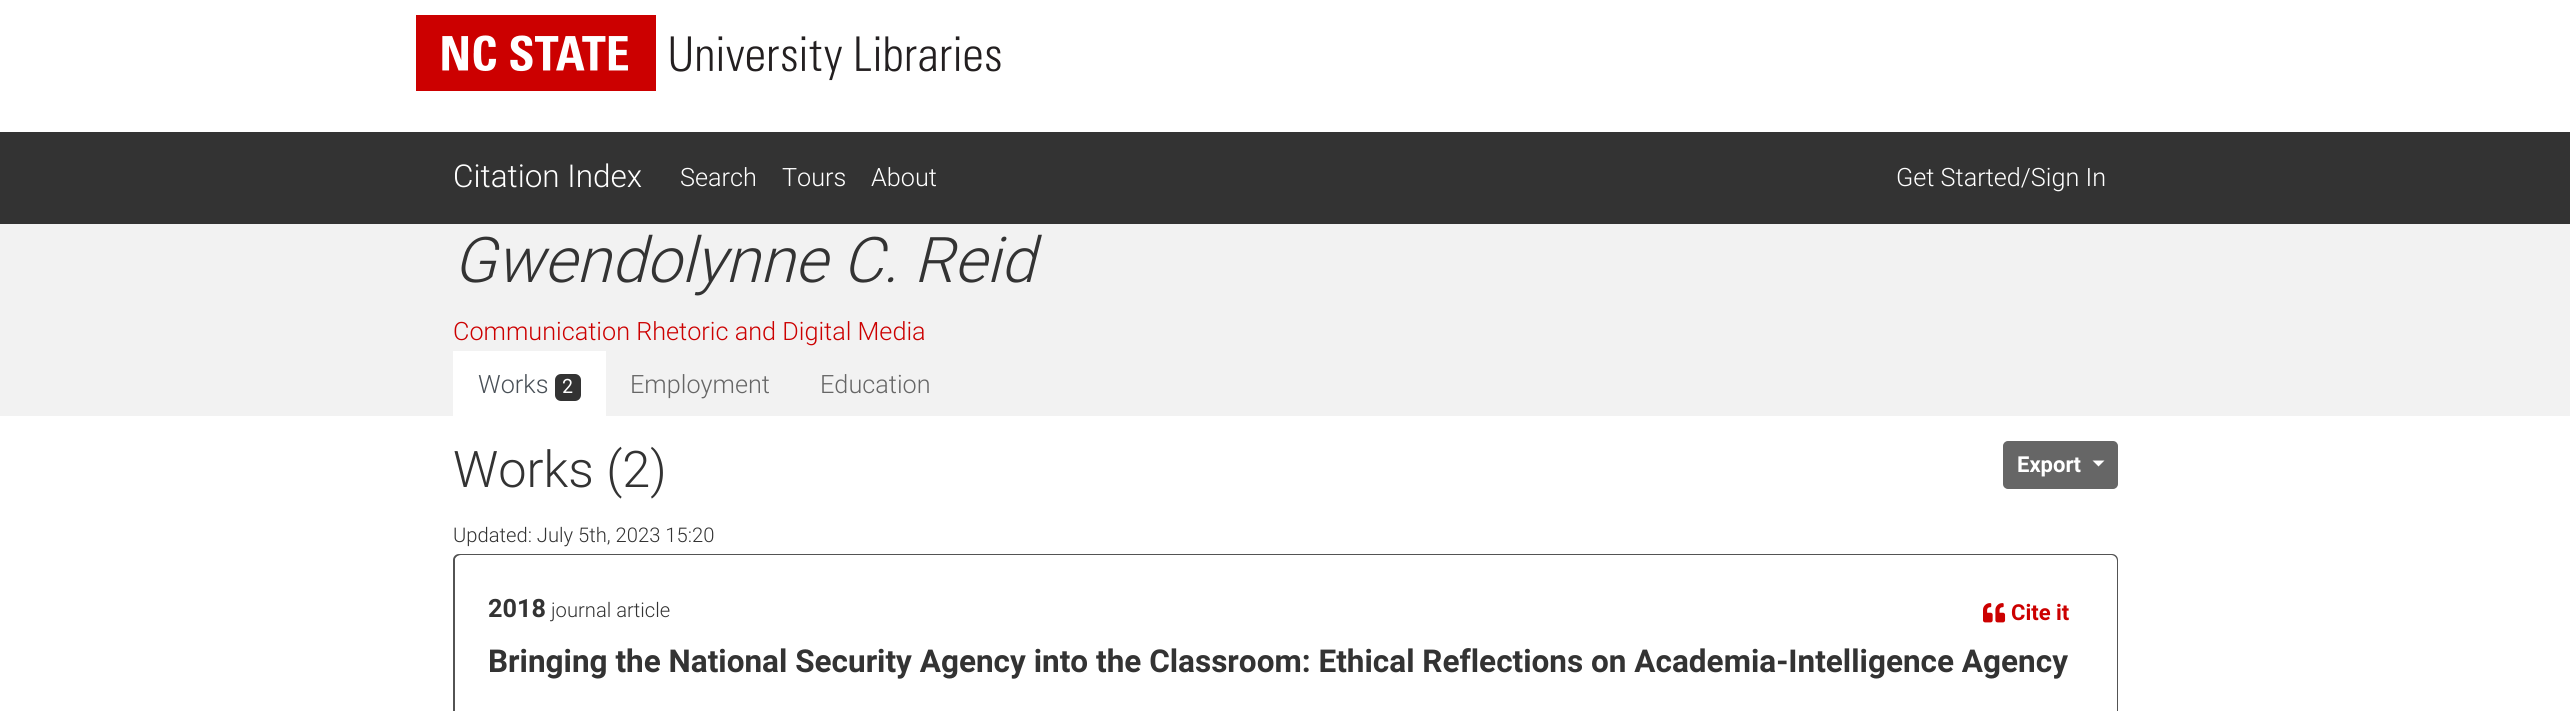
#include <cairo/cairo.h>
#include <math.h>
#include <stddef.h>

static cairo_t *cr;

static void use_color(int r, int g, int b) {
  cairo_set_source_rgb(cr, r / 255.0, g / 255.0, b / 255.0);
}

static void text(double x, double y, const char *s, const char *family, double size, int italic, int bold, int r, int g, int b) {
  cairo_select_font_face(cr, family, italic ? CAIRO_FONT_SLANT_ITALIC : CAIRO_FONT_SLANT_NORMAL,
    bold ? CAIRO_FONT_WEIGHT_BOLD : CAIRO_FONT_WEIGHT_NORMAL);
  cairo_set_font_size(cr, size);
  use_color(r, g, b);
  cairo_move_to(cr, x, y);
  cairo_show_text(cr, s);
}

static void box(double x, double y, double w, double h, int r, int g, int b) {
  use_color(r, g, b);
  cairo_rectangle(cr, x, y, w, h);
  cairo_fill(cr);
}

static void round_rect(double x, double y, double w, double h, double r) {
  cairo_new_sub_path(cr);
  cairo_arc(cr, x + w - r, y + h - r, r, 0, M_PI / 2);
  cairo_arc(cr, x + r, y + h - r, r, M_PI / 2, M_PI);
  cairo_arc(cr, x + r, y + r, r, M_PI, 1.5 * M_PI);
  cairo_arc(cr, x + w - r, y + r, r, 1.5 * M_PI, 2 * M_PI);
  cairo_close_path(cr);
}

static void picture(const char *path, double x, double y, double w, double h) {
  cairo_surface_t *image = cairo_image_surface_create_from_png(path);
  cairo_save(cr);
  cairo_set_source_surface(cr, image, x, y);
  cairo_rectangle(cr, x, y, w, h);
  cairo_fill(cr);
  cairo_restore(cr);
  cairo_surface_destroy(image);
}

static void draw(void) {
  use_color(255, 255, 255);
  cairo_paint(cr);
  picture("img_01.png", 416, 15, 585, 76);
  box(0, 132, 2570, 92, 51, 51, 51);
  box(0, 224, 2570, 192, 242, 242, 242);
  box(453, 351, 153, 65, 255, 255, 255);
  use_color(51, 51, 51);
  round_rect(555, 374, 26, 27, 6);
  cairo_fill(cr);
  use_color(102, 102, 102);
  round_rect(2004, 442, 113, 46, 4);
  cairo_fill_preserve(cr);
  cairo_stroke(cr);
  use_color(255, 255, 255);
  cairo_new_path(cr);
  cairo_move_to(cr, 2092.5, 460.5);
  cairo_line_to(cr, 2104.5, 460.5);
  cairo_line_to(cr, 2098.5, 466.5);
  cairo_close_path(cr);
  cairo_fill(cr);
  round_rect(454, 555, 1663, 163, 5);
  use_color(83, 83, 83);
  cairo_stroke(cr);
  use_color(255, 255, 255);
  round_rect(455, 555, 1662, 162, 6);
  cairo_fill(cr);
  picture("img_02.png", 1983, 603, 23, 20);
  text(453, 187, "Citation Index", "Roboto Light", 31.5, 0, 0, 255, 255, 255);
  text(680, 186, "Search", "Roboto Light", 25.25, 0, 0, 255, 255, 255);
  text(782, 186, "Tours", "Roboto Light", 25.25, 0, 0, 255, 255, 255);
  text(871, 186, "About", "Roboto Light", 25.25, 0, 0, 255, 255, 255);
  text(1896, 186, "Get Started/Sign In", "Roboto Light", 25.25, 0, 0, 255, 255, 255);
  text(453, 282, "Gwendolynne C. Reid", "Roboto Light", 63, 1, 0, 51, 51, 51);
  text(453, 340, "Communication Rhetoric and Digital Media", "Roboto Light", 25.25, 0, 0, 204, 0, 0);
  text(478, 393, "Works", "Roboto Light", 25.25, 0, 0, 73, 80, 87);
  text(562, 393, "2", "Roboto", 19, 0, 1, 255, 255, 255);
  text(630, 393, "Employment", "Roboto Light", 25.25, 0, 0, 102, 102, 102);
  text(820, 393, "Education", "Roboto Light", 25.25, 0, 0, 102, 102, 102);
  text(453, 487, "Works (2)", "Roboto Light", 50.5, 0, 0, 51, 51, 51);
  text(453, 542, "Updated: July 5th, 2023 15:20", "Roboto Light", 20.2, 0, 0, 51, 51, 51);
  text(2017, 472, "Export", "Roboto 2", 22, 0, 1, 255, 255, 255);
  text(488, 617, "2018", "Roboto 2", 25.25, 0, 1, 51, 51, 51);
  text(551, 617, "journal article", "Roboto Light", 20.2, 0, 0, 51, 51, 51);
  text(2011, 620, "Cite it", "Roboto 2", 22, 0, 1, 204, 0, 0);
  text(488, 672, "Bringing the National Security Agency into the Classroom: Ethical Reflections on Academia-Intelligence Agency", "Roboto 2", 31.5, 0, 1, 51, 51, 51);
}

int main(void) {
  cairo_surface_t *surface = cairo_image_surface_create(CAIRO_FORMAT_RGB24, 2570, 711);
  cr = cairo_create(surface);
  cairo_font_options_t *options = cairo_font_options_create();
  cairo_font_options_set_hint_metrics(options, CAIRO_HINT_METRICS_OFF);
  cairo_font_options_set_hint_style(options, CAIRO_HINT_STYLE_NONE);
  cairo_set_font_options(cr, options);
  cairo_set_miter_limit(cr, 4);
  draw();
  cairo_surface_write_to_png(surface, "out.png");
  cairo_font_options_destroy(options);
  cairo_destroy(cr);
  cairo_surface_destroy(surface);
  return 0;
}
